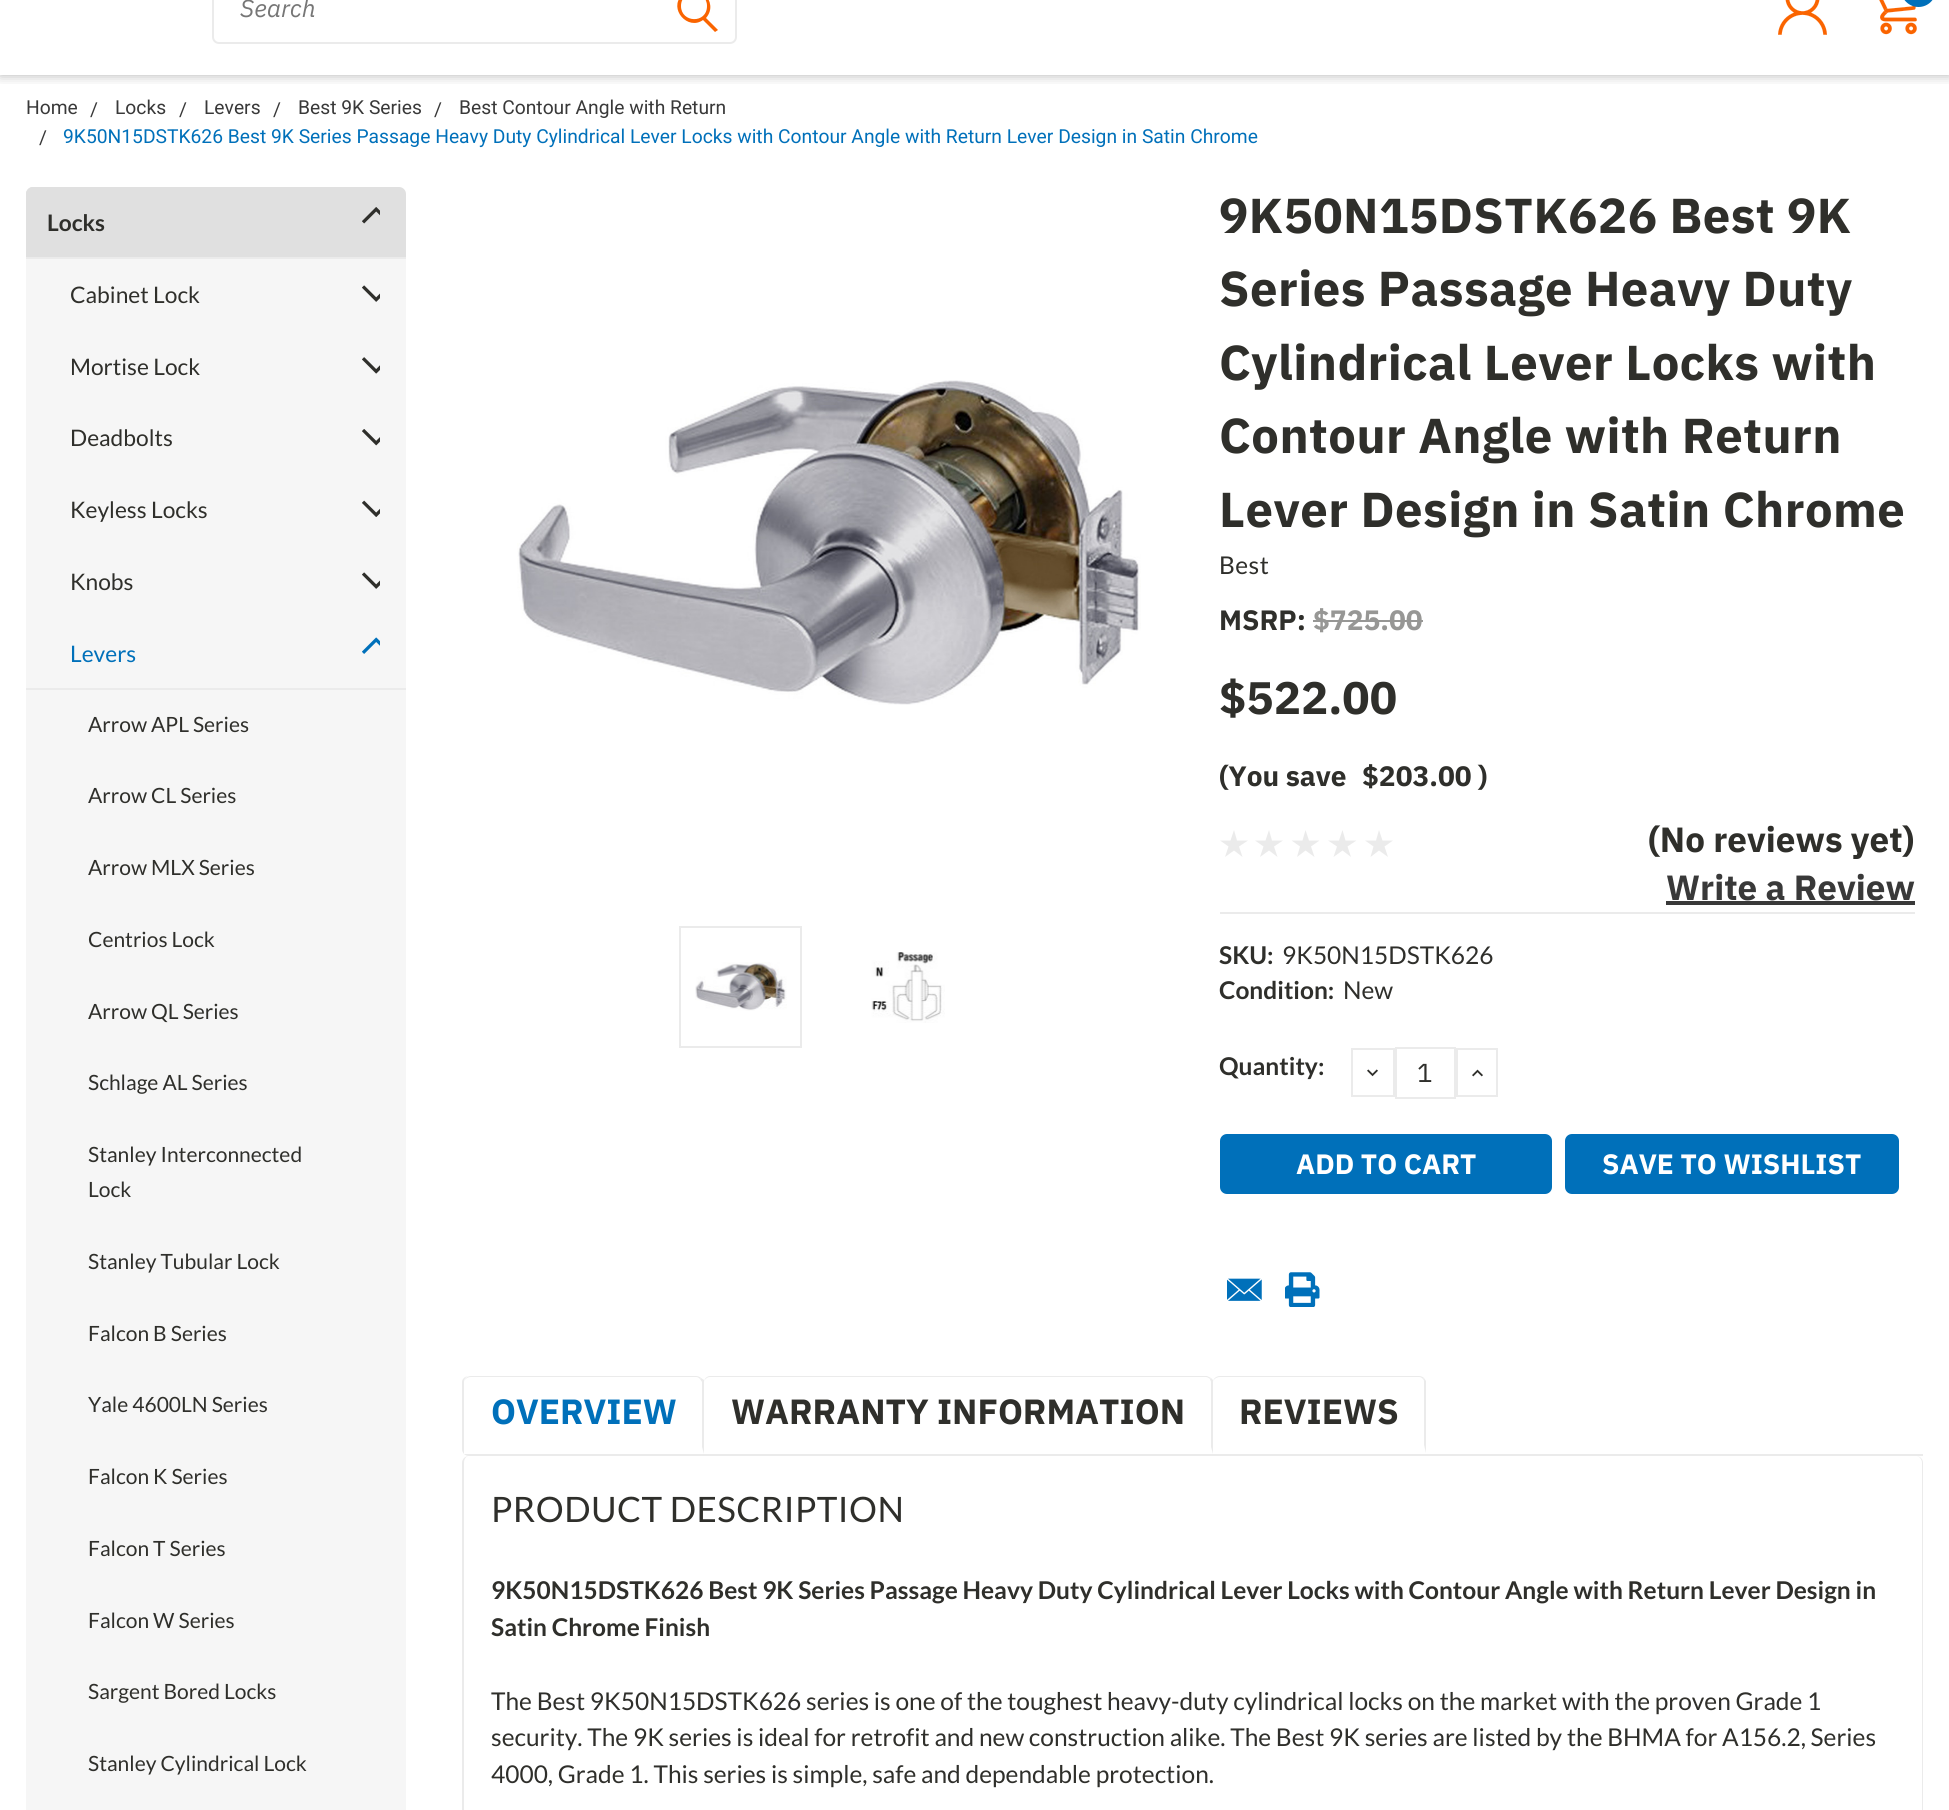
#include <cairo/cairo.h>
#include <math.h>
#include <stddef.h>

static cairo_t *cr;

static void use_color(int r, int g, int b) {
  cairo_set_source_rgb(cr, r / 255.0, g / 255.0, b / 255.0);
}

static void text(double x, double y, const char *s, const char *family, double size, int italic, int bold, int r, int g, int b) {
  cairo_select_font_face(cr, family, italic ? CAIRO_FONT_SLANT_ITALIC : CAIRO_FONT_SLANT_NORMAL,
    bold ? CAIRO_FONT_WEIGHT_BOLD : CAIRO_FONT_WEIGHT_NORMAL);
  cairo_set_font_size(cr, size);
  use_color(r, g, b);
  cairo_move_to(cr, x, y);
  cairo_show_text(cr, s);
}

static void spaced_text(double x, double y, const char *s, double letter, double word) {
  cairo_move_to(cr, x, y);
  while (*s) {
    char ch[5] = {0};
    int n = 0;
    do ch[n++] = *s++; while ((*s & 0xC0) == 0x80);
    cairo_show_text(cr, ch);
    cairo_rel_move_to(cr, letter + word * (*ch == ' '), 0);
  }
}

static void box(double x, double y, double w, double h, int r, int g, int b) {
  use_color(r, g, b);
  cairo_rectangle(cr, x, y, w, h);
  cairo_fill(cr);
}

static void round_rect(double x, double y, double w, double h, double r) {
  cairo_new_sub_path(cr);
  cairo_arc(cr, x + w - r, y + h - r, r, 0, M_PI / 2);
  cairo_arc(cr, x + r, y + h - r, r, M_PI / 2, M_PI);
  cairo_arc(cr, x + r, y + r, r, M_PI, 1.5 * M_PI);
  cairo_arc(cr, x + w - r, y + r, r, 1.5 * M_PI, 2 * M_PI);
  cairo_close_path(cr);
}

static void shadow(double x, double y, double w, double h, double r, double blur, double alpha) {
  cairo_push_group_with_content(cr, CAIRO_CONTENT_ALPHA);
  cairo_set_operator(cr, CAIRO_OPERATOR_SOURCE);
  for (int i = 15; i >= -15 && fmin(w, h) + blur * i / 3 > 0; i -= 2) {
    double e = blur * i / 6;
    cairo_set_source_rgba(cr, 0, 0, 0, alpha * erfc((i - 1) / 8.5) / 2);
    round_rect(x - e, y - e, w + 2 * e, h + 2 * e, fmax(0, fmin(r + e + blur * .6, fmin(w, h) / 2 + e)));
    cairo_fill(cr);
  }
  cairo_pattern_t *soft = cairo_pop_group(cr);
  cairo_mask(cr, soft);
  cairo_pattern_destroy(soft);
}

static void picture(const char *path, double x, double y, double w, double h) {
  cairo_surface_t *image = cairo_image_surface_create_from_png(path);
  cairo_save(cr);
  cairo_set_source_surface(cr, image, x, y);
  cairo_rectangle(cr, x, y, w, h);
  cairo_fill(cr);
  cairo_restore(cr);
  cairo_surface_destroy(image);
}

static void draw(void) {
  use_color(255, 255, 255);
  cairo_paint(cr);
  cairo_save(cr);
  cairo_rectangle(cr, 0, 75, 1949, 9);
  cairo_clip(cr);
  use_color(0, 0, 0);
  shadow(0, 0, 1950, 75, 0, 6, 0.3);
  cairo_restore(cr);
  round_rect(213, -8, 523, 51, 6);
  use_color(235, 235, 235);
  cairo_stroke(cr);
  use_color(250, 100, 0);
  cairo_new_path(cr);
  cairo_move_to(cr, 718, 30);
  cairo_line_to(cr, 706, 18);
  cairo_curve_to(cr, 720, 2, 697, -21, 682, -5);
  cairo_curve_to(cr, 668, 9, 688, 31, 703, 20);
  cairo_line_to(cr, 715, 32);
  cairo_close_path(cr);
  cairo_move_to(cr, 681, 6);
  cairo_curve_to(cr, 681, -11, 707, -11, 707, 6);
  cairo_curve_to(cr, 707, 24, 681, 23, 681, 6);
  cairo_close_path(cr);
  cairo_fill(cr);
  picture("img_01.png", 1778, 0, 49, 35);
  picture("img_02.png", 1879, 0, 38, 35);
  use_color(0, 112, 186);
  round_rect(1901, -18, 35, 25, 17.5);
  cairo_fill(cr);
  use_color(224, 224, 224);
  round_rect(26, 187, 380, 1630, 7);
  cairo_fill(cr);
  round_rect(26, 187, 322, 70, 7);
  cairo_fill(cr);
  picture("img_03.png", 362, 207, 18, 17);
  box(26, 257, 380, 2, 235, 235, 235);
  box(26, 259, 380, 1551, 246, 246, 246);
  picture("img_04.png", 362, 285, 18, 17);
  picture("img_05.png", 362, 357, 18, 17);
  picture("img_06.png", 362, 429, 18, 17);
  picture("img_07.png", 362, 500, 18, 17);
  picture("img_04.png", 362, 572, 18, 17);
  picture("img_08.png", 362, 637, 18, 17);
  box(26, 688, 380, 2, 235, 235, 235);
  picture("img_09.png", 517, 380, 624, 325);
  cairo_rectangle(cr, 680, 927, 121, 120);
  cairo_stroke(cr);
  picture("img_10.png", 695, 962, 92, 49);
  picture("img_11.png", 871, 952, 74, 71);
  box(1313, 620, 110, 2, 151, 151, 149);
  use_color(235, 235, 235);
  cairo_new_path(cr);
  cairo_move_to(cr, 1234, 830);
  cairo_line_to(cr, 1237, 840.5);
  cairo_line_to(cr, 1248, 840.5);
  cairo_line_to(cr, 1239, 846.5);
  cairo_line_to(cr, 1242.5, 857);
  cairo_line_to(cr, 1234, 850.5);
  cairo_line_to(cr, 1225, 857);
  cairo_line_to(cr, 1228.5, 846.5);
  cairo_line_to(cr, 1220, 840.5);
  cairo_line_to(cr, 1230.5, 840.5);
  cairo_close_path(cr);
  cairo_move_to(cr, 1269, 830);
  cairo_line_to(cr, 1272, 840.5);
  cairo_line_to(cr, 1283, 840.5);
  cairo_line_to(cr, 1274, 846.5);
  cairo_line_to(cr, 1277.5, 857);
  cairo_line_to(cr, 1269, 850.5);
  cairo_line_to(cr, 1260, 857);
  cairo_line_to(cr, 1263.5, 846.5);
  cairo_line_to(cr, 1255, 840.5);
  cairo_line_to(cr, 1265.5, 840.5);
  cairo_close_path(cr);
  cairo_fill(cr);
  cairo_new_path(cr);
  cairo_move_to(cr, 1305.5, 830);
  cairo_line_to(cr, 1309, 840.5);
  cairo_line_to(cr, 1319.5, 840.5);
  cairo_line_to(cr, 1311, 846.5);
  cairo_line_to(cr, 1314.5, 857);
  cairo_line_to(cr, 1305.5, 850.5);
  cairo_line_to(cr, 1297, 857);
  cairo_line_to(cr, 1300, 846.5);
  cairo_line_to(cr, 1291.5, 840.5);
  cairo_line_to(cr, 1302.5, 840.5);
  cairo_close_path(cr);
  cairo_fill(cr);
  cairo_new_path(cr);
  cairo_move_to(cr, 1342.5, 830);
  cairo_line_to(cr, 1345.5, 840.5);
  cairo_line_to(cr, 1356.5, 840.5);
  cairo_line_to(cr, 1347.5, 846.5);
  cairo_line_to(cr, 1351, 857);
  cairo_line_to(cr, 1342.5, 850.5);
  cairo_line_to(cr, 1333.5, 857);
  cairo_line_to(cr, 1337, 846.5);
  cairo_line_to(cr, 1328, 840.5);
  cairo_line_to(cr, 1339, 840.5);
  cairo_close_path(cr);
  cairo_fill(cr);
  cairo_new_path(cr);
  cairo_move_to(cr, 1379, 830);
  cairo_line_to(cr, 1382.5, 840.5);
  cairo_line_to(cr, 1393, 840.5);
  cairo_line_to(cr, 1384.5, 846.5);
  cairo_line_to(cr, 1388, 857);
  cairo_line_to(cr, 1379, 850.5);
  cairo_line_to(cr, 1370.5, 857);
  cairo_line_to(cr, 1373.5, 846.5);
  cairo_line_to(cr, 1365, 840.5);
  cairo_line_to(cr, 1376, 840.5);
  cairo_close_path(cr);
  cairo_fill(cr);
  box(1666, 901, 249, 4, 57, 57, 57);
  box(1220, 912, 695, 2, 235, 235, 235);
  cairo_rectangle(cr, 1352, 1049, 42, 47);
  cairo_stroke(cr);
  picture("img_12.png", 1367, 1069, 11, 8);
  cairo_rectangle(cr, 1396, 1048, 59, 50);
  cairo_stroke(cr);
  cairo_rectangle(cr, 1457, 1049, 40, 47);
  cairo_stroke(cr);
  picture("img_13.png", 1472, 1069, 11, 8);
  use_color(0, 112, 186);
  round_rect(1220, 1134, 332, 60, 7);
  cairo_fill(cr);
  round_rect(1565, 1134, 334, 60, 7);
  cairo_fill(cr);
  picture("img_14.png", 1227, 1278, 35, 23);
  picture("img_15.png", 1285, 1272, 35, 35);
  use_color(235, 235, 235);
  cairo_set_fill_rule(cr, CAIRO_FILL_RULE_EVEN_ODD);
  cairo_new_path(cr);
  cairo_move_to(cr, 469, 1376);
  cairo_line_to(cr, 1923, 1376);
  cairo_line_to(cr, 1923, 1456);
  cairo_line_to(cr, 469, 1456);
  cairo_curve_to(cr, 465, 1456, 462, 1453, 462, 1449);
  cairo_line_to(cr, 462, 1382);
  cairo_curve_to(cr, 462, 1379, 465, 1376, 469, 1376);
  cairo_close_path(cr);
  cairo_move_to(cr, 469, 1376);
  cairo_line_to(cr, 1923, 1376);
  cairo_line_to(cr, 1923, 1454);
  cairo_line_to(cr, 469, 1454);
  cairo_curve_to(cr, 466, 1454, 464, 1452, 464, 1449);
  cairo_line_to(cr, 464, 1382);
  cairo_curve_to(cr, 464, 1379, 466, 1376, 469, 1376);
  cairo_close_path(cr);
  cairo_fill(cr);
  use_color(255, 255, 255);
  cairo_new_path(cr);
  cairo_move_to(cr, 471, 1376);
  cairo_line_to(cr, 697, 1376);
  cairo_curve_to(cr, 701, 1376, 704, 1379, 704, 1383);
  cairo_line_to(cr, 704, 1454);
  cairo_line_to(cr, 464, 1454);
  cairo_line_to(cr, 464, 1383);
  cairo_curve_to(cr, 464, 1379, 467, 1376, 471, 1376);
  cairo_close_path(cr);
  cairo_fill(cr);
  use_color(235, 235, 235);
  cairo_set_fill_rule(cr, CAIRO_FILL_RULE_WINDING);
  cairo_new_path(cr);
  cairo_move_to(cr, 471, 1376);
  cairo_line_to(cr, 696, 1376);
  cairo_curve_to(cr, 698, 1376, 700, 1377, 701, 1378);
  cairo_line_to(cr, 700, 1379);
  cairo_curve_to(cr, 699, 1378, 698, 1377, 696, 1377);
  cairo_line_to(cr, 471, 1377);
  cairo_curve_to(cr, 467, 1377, 464, 1380, 464, 1382);
  cairo_curve_to(cr, 464, 1379, 467, 1376, 471, 1376);
  cairo_close_path(cr);
  cairo_fill(cr);
  cairo_new_path(cr);
  cairo_move_to(cr, 701, 1378);
  cairo_line_to(cr, 704, 1380);
  cairo_line_to(cr, 704, 1454);
  cairo_line_to(cr, 702, 1447);
  cairo_line_to(cr, 702, 1382);
  cairo_line_to(cr, 700, 1379);
  cairo_close_path(cr);
  cairo_fill(cr);
  cairo_new_path(cr);
  cairo_move_to(cr, 710, 1376);
  cairo_line_to(cr, 1207, 1376);
  cairo_line_to(cr, 1211, 1378);
  cairo_line_to(cr, 1210, 1379);
  cairo_curve_to(cr, 1209, 1378, 1207, 1377, 1206, 1377);
  cairo_line_to(cr, 710, 1377);
  cairo_curve_to(cr, 707, 1377, 704, 1380, 704, 1382);
  cairo_curve_to(cr, 704, 1379, 707, 1376, 710, 1376);
  cairo_close_path(cr);
  cairo_fill(cr);
  cairo_new_path(cr);
  cairo_move_to(cr, 1211, 1378);
  cairo_line_to(cr, 1213, 1380);
  cairo_line_to(cr, 1213, 1454);
  cairo_line_to(cr, 1211, 1447);
  cairo_line_to(cr, 1211, 1382);
  cairo_curve_to(cr, 1211, 1381, 1210, 1380, 1210, 1379);
  cairo_close_path(cr);
  cairo_fill(cr);
  cairo_new_path(cr);
  cairo_move_to(cr, 1220, 1376);
  cairo_line_to(cr, 1419, 1376);
  cairo_curve_to(cr, 1421, 1376, 1423, 1377, 1424, 1378);
  cairo_line_to(cr, 1423, 1379);
  cairo_curve_to(cr, 1422, 1378, 1421, 1377, 1419, 1377);
  cairo_line_to(cr, 1220, 1377);
  cairo_curve_to(cr, 1216, 1377, 1213, 1380, 1213, 1382);
  cairo_curve_to(cr, 1213, 1379, 1216, 1376, 1220, 1376);
  cairo_close_path(cr);
  cairo_fill(cr);
  cairo_new_path(cr);
  cairo_move_to(cr, 1423, 1379);
  cairo_line_to(cr, 1424, 1378);
  cairo_line_to(cr, 1426, 1381);
  cairo_line_to(cr, 1426, 1453);
  cairo_line_to(cr, 1424, 1445);
  cairo_line_to(cr, 1424, 1382);
  cairo_curve_to(cr, 1424, 1381, 1424, 1380, 1423, 1379);
  cairo_close_path(cr);
  cairo_fill(cr);
  cairo_set_fill_rule(cr, CAIRO_FILL_RULE_EVEN_ODD);
  cairo_new_path(cr);
  cairo_move_to(cr, 469, 1456);
  cairo_line_to(cr, 1916, 1456);
  cairo_curve_to(cr, 1920, 1456, 1923, 1459, 1923, 1463);
  cairo_line_to(cr, 1923, 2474);
  cairo_curve_to(cr, 1923, 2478, 1920, 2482, 1916, 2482);
  cairo_line_to(cr, 469, 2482);
  cairo_curve_to(cr, 465, 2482, 462, 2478, 462, 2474);
  cairo_line_to(cr, 462, 1463);
  cairo_curve_to(cr, 462, 1459, 465, 1456, 469, 1456);
  cairo_close_path(cr);
  cairo_move_to(cr, 469, 1456);
  cairo_line_to(cr, 1916, 1456);
  cairo_curve_to(cr, 1919, 1456, 1922, 1459, 1922, 1463);
  cairo_line_to(cr, 1922, 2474);
  cairo_curve_to(cr, 1922, 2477, 1919, 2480, 1916, 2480);
  cairo_line_to(cr, 469, 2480);
  cairo_curve_to(cr, 466, 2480, 464, 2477, 464, 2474);
  cairo_line_to(cr, 464, 1463);
  cairo_curve_to(cr, 464, 1459, 466, 1456, 469, 1456);
  cairo_close_path(cr);
  cairo_fill(cr);
  text(240, 17, "Search", "IBM Plex Sans", 24.5, 1, 0, 118, 118, 118);
  text(26, 114, "Home", "Roboto", 19.25, 0, 0, 57, 57, 57);
  text(90, 116, "/", "Roboto", 19.25, 0, 0, 57, 57, 57);
  text(115, 114, "Locks", "Roboto", 19.25, 0, 0, 57, 57, 57);
  text(179, 116, "/", "Roboto", 19.25, 0, 0, 57, 57, 57);
  text(204, 114, "Levers", "Roboto", 19.25, 0, 0, 57, 57, 57);
  text(273, 116, "/", "Roboto", 19.25, 0, 0, 57, 57, 57);
  text(298, 114, "Best 9K Series", "Roboto", 19.25, 0, 0, 57, 57, 57);
  text(434, 116, "/", "Roboto", 19.25, 0, 0, 57, 57, 57);
  text(459, 114, "Best Contour Angle with Return", "Roboto", 19.25, 0, 0, 57, 57, 57);
  text(39, 144, "/", "Roboto", 19.25, 0, 0, 57, 57, 57);
  text(63, 143, "9K50N15DSTK626 Best 9K Series Passage Heavy Duty Cylindrical Lever Locks with Contour Angle with Return Lever Design in Satin Chrome", "Roboto", 19.25, 0, 0, 0, 112, 186);
  text(47, 231, "Locks", "Lato", 22.75, 0, 1, 47, 47, 43);
  text(70, 303, "Cabinet Lock", "Lato", 22.75, 0, 0, 47, 47, 43);
  text(70, 375, "Mortise Lock", "Lato", 22.75, 0, 0, 47, 47, 43);
  text(70, 446, "Deadbolts", "Lato", 22.75, 0, 0, 47, 47, 43);
  text(70, 518, "Keyless Locks", "Lato", 22.75, 0, 0, 47, 47, 43);
  text(70, 590, "Knobs", "Lato", 22.75, 0, 0, 47, 47, 43);
  text(70, 662, "Levers", "Lato", 22.75, 0, 0, 0, 112, 186);
  text(88, 732, "Arrow APL Series", "Lato", 21, 0, 0, 47, 47, 43);
  text(88, 803, "Arrow CL Series", "Lato", 21, 0, 0, 47, 47, 43);
  text(88, 875, "Arrow MLX Series", "Lato", 21, 0, 0, 47, 47, 43);
  text(88, 947, "Centrios Lock", "Lato", 21, 0, 0, 47, 47, 43);
  text(88, 1019, "Arrow QL Series", "Lato", 21, 0, 0, 47, 47, 43);
  text(88, 1090, "Schlage AL Series", "Lato", 21, 0, 0, 47, 47, 43);
  text(88, 1162, "Stanley Interconnected", "Lato", 21, 0, 0, 47, 47, 43);
  text(88, 1197, "Lock", "Lato", 21, 0, 0, 47, 47, 43);
  text(88, 1269, "Stanley Tubular Lock", "Lato", 21, 0, 0, 47, 47, 43);
  text(88, 1341, "Falcon B Series", "Lato", 21, 0, 0, 47, 47, 43);
  text(88, 1412, "Yale 4600LN Series", "Lato", 21, 0, 0, 47, 47, 43);
  text(88, 1484, "Falcon K Series", "Lato", 21, 0, 0, 47, 47, 43);
  text(88, 1556, "Falcon T Series", "Lato", 21, 0, 0, 47, 47, 43);
  text(88, 1628, "Falcon W Series", "Lato", 21, 0, 0, 47, 47, 43);
  text(88, 1699, "Sargent Bored Locks", "Lato", 21, 0, 0, 47, 47, 43);
  text(88, 1771, "Stanley Cylindrical Lock", "Lato", 21, 0, 0, 47, 47, 43);
  cairo_select_font_face(cr, "IBM Plex Sans", CAIRO_FONT_SLANT_NORMAL, CAIRO_FONT_WEIGHT_BOLD);
  cairo_set_font_size(cr, 49);
  spaced_text(1219, 233, "9K50N15DSTK626 Best 9K", 0.45, 0);
  spaced_text(1219, 306, "Series Passage Heavy Duty", 0.45, 0);
  spaced_text(1219, 380, "Cylindrical Lever Locks with", 0.45, 0);
  spaced_text(1219, 453, "Contour Angle with Return", 0.45, 0);
  spaced_text(1219, 527, "Lever Design in Satin Chrome", 0.45, 0);
  cairo_select_font_face(cr, "Lato", CAIRO_FONT_SLANT_NORMAL, CAIRO_FONT_WEIGHT_NORMAL);
  cairo_set_font_size(cr, 24.5);
  spaced_text(1219, 574, "Best", 0.45, 0);
  text(1219, 630, "MSRP:", "IBM Plex Sans", 28, 0, 1, 47, 47, 43);
  text(1313, 630, "$725.00", "IBM Plex Sans", 28, 0, 1, 151, 151, 149);
  text(1219, 714, "$522.00", "IBM Plex Sans", 45.5, 0, 1, 47, 47, 43);
  text(1219, 786, "(You save", "IBM Plex Sans", 28, 0, 1, 47, 47, 43);
  text(1362, 786, "$203.00 )", "IBM Plex Sans", 28, 0, 1, 47, 47, 43);
  text(1648, 852, "(No reviews yet)", "IBM Plex Sans", 35, 0, 1, 47, 47, 43);
  text(1666, 900, "Write a Review", "IBM Plex Sans", 35, 0, 1, 57, 57, 57);
  text(1219, 964, "SKU:", "Lato", 24.5, 0, 1, 47, 47, 43);
  text(1282, 964, "9K50N15DSTK626", "Lato", 24.5, 0, 0, 47, 47, 43);
  text(1219, 999, "Condition:", "Lato", 24.5, 0, 1, 47, 47, 43);
  text(1343, 999, "New", "Lato", 24.5, 0, 0, 47, 47, 43);
  text(1219, 1075, "Quantity:", "Lato", 24.5, 0, 1, 47, 47, 43);
  text(1417, 1082, "1", "IBM Plex Sans", 26, 0, 0, 47, 47, 43);
  text(1296, 1174, "ADD TO CART", "IBM Plex Sans", 28, 0, 1, 255, 255, 255);
  text(1602, 1174, "SAVE TO WISHLIST", "IBM Plex Sans", 28, 0, 1, 255, 255, 255);
  text(491, 1424, "OVERVIEW", "IBM Plex Sans", 35, 0, 1, 0, 112, 186);
  text(731, 1424, "WARRANTY INFORMATION", "IBM Plex Sans", 35, 0, 1, 47, 47, 43);
  text(1239, 1424, "REVIEWS", "IBM Plex Sans", 35, 0, 1, 47, 47, 43);
  cairo_select_font_face(cr, "Lato", CAIRO_FONT_SLANT_NORMAL, CAIRO_FONT_WEIGHT_NORMAL);
  spaced_text(491, 1522, "PRODUCT DESCRIPTION", 0.45, 0);
  text(491, 1599, "9K50N15DSTK626 Best 9K Series Passage Heavy Duty Cylindrical Lever Locks with Contour Angle with Return Lever Design in", "Lato", 24.5, 0, 1, 47, 47, 43);
  text(491, 1636, "Satin Chrome Finish", "Lato", 24.5, 0, 1, 47, 47, 43);
  text(491, 1710, "The Best 9K50N15DSTK626 series is one of the toughest heavy-duty cylindrical locks on the market with the proven Grade 1", "Lato", 24.5, 0, 0, 47, 47, 43);
  text(491, 1746, "security. The 9K series is ideal for retrofit and new construction alike. The Best 9K series are listed by the BHMA for A156.2, Series", "Lato", 24.5, 0, 0, 47, 47, 43);
  text(491, 1783, "4000, Grade 1. This series is simple, safe and dependable protection.", "Lato", 24.5, 0, 0, 47, 47, 43);
}

int main(void) {
  cairo_surface_t *surface = cairo_image_surface_create(CAIRO_FORMAT_RGB24, 1949, 1810);
  cr = cairo_create(surface);
  cairo_font_options_t *options = cairo_font_options_create();
  cairo_font_options_set_hint_metrics(options, CAIRO_HINT_METRICS_OFF);
  cairo_font_options_set_hint_style(options, CAIRO_HINT_STYLE_NONE);
  cairo_set_font_options(cr, options);
  cairo_set_miter_limit(cr, 4);
  draw();
  cairo_surface_write_to_png(surface, "out.png");
  cairo_font_options_destroy(options);
  cairo_destroy(cr);
  cairo_surface_destroy(surface);
  return 0;
}
